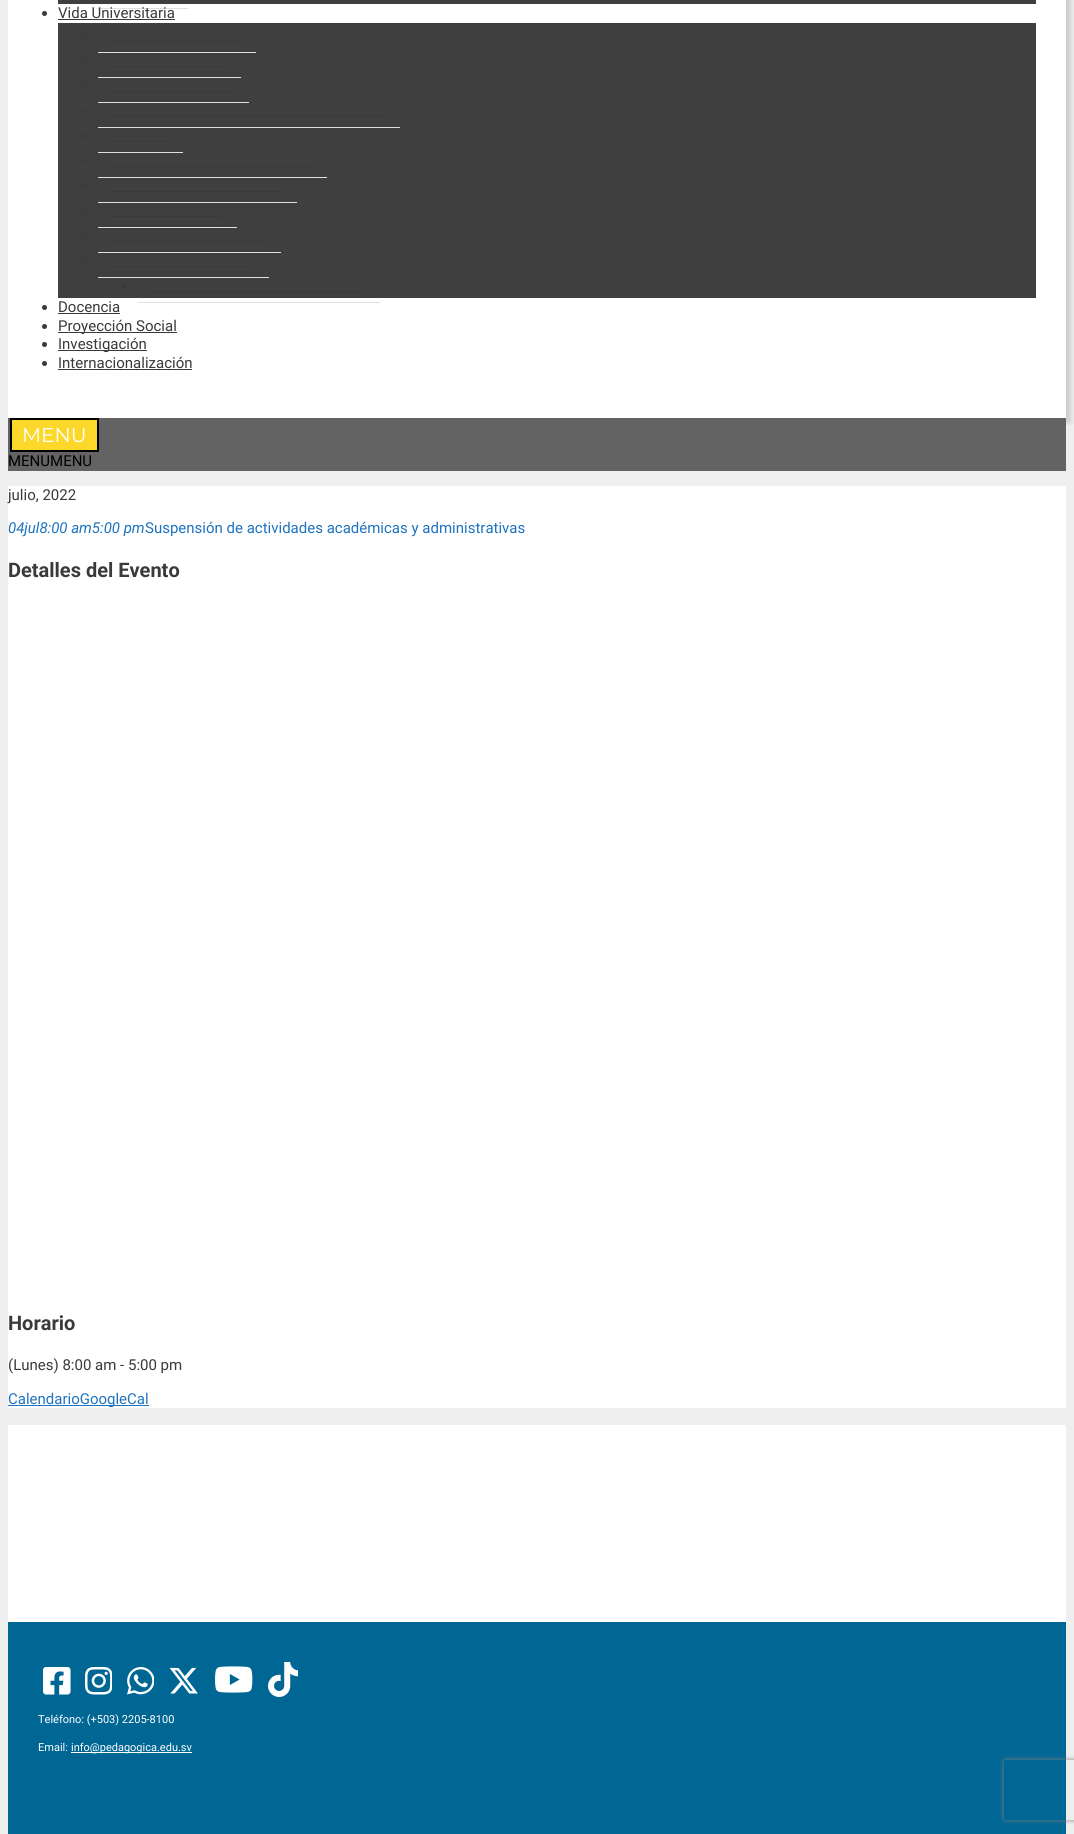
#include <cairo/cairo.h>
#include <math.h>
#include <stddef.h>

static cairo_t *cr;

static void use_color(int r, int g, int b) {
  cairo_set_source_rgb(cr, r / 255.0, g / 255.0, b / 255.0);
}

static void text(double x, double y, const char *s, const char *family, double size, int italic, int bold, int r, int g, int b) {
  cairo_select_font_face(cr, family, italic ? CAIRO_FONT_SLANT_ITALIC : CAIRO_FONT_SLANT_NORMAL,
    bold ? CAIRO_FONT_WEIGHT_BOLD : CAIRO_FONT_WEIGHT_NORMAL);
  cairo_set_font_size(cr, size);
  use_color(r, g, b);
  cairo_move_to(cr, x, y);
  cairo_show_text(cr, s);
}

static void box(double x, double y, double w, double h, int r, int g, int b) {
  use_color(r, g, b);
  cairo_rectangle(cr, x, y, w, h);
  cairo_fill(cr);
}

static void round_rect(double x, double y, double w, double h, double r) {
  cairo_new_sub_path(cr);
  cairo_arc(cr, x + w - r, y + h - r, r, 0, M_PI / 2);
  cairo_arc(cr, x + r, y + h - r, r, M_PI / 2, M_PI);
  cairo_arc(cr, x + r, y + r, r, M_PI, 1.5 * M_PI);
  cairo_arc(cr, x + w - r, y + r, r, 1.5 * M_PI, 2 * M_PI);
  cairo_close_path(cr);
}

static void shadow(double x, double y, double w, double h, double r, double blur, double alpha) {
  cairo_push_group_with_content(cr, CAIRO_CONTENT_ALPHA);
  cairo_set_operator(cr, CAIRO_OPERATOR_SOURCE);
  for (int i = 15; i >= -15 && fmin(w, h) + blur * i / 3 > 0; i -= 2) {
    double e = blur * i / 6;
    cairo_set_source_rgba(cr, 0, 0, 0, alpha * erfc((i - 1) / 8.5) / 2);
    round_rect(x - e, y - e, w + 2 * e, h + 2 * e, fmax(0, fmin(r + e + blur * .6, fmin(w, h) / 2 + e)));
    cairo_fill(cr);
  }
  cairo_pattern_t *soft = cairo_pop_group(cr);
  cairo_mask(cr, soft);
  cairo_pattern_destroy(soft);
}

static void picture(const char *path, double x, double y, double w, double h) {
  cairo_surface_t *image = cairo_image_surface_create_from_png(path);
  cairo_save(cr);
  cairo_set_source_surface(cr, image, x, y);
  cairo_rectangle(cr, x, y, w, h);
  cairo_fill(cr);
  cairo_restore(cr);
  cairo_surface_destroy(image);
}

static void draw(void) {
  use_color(239, 239, 239);
  cairo_paint(cr);
  box(8, 0, 1058, 418, 255, 255, 255);
  cairo_save(cr);
  cairo_rectangle(cr, 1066, 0, 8, 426);
  cairo_clip(cr);
  use_color(68, 68, 68);
  shadow(13, -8, 1058, 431, 0, 2.5, 0.2);
  cairo_restore(cr);
  box(58, 0, 978, 4, 63, 63, 63);
  box(98, 8, 90, 1, 225, 225, 225);
  use_color(58, 58, 58);
  cairo_arc(cr, 44.5, 13.5, 2.5, 0, 2 * M_PI);
  cairo_fill(cr);
  box(58, 19, 117, 1, 58, 58, 58);
  box(58, 23, 978, 275, 63, 63, 63);
  cairo_arc(cr, 85, 36, 2.5, 0, 2 * M_PI);
  use_color(58, 58, 58);
  cairo_set_line_width(cr, 1);
  cairo_stroke(cr);
  box(108, 41, 133, 1, 58, 58, 58);
  box(98, 52, 158, 1, 225, 225, 225);
  cairo_arc(cr, 85, 61, 2.5, 0, 2 * M_PI);
  use_color(58, 58, 58);
  cairo_stroke(cr);
  box(108, 66, 118, 1, 58, 58, 58);
  box(98, 77, 143, 1, 225, 225, 225);
  cairo_arc(cr, 85, 86, 2.5, 0, 2 * M_PI);
  use_color(58, 58, 58);
  cairo_stroke(cr);
  box(108, 91, 126, 1, 58, 58, 58);
  box(98, 102, 151, 1, 225, 225, 225);
  cairo_arc(cr, 85, 111, 2.5, 0, 2 * M_PI);
  use_color(58, 58, 58);
  cairo_stroke(cr);
  box(108, 116, 277, 1, 58, 58, 58);
  box(98, 127, 302, 1, 225, 225, 225);
  cairo_arc(cr, 85, 136, 2.5, 0, 2 * M_PI);
  use_color(58, 58, 58);
  cairo_stroke(cr);
  box(108, 141, 60, 1, 58, 58, 58);
  box(98, 152, 85, 1, 225, 225, 225);
  cairo_arc(cr, 85, 161, 2.5, 0, 2 * M_PI);
  use_color(58, 58, 58);
  cairo_stroke(cr);
  box(108, 166, 204, 1, 58, 58, 58);
  box(98, 177, 229, 1, 225, 225, 225);
  cairo_arc(cr, 85, 186, 2.5, 0, 2 * M_PI);
  use_color(58, 58, 58);
  cairo_stroke(cr);
  box(108, 191, 174, 1, 58, 58, 58);
  box(98, 202, 199, 1, 225, 225, 225);
  cairo_arc(cr, 85, 211, 2.5, 0, 2 * M_PI);
  use_color(58, 58, 58);
  cairo_stroke(cr);
  box(108, 216, 114, 1, 58, 58, 58);
  box(98, 227, 139, 1, 225, 225, 225);
  cairo_arc(cr, 85, 236, 2.5, 0, 2 * M_PI);
  use_color(58, 58, 58);
  cairo_stroke(cr);
  box(108, 241, 158, 1, 58, 58, 58);
  box(98, 252, 183, 1, 225, 225, 225);
  cairo_arc(cr, 85, 261, 2.5, 0, 2 * M_PI);
  use_color(58, 58, 58);
  cairo_stroke(cr);
  box(108, 266, 146, 1, 58, 58, 58);
  box(98, 277, 171, 1, 225, 225, 225);
  box(122, 283, 5, 5, 58, 58, 58);
  box(148, 291, 217, 1, 58, 58, 58);
  box(138, 302, 242, 1, 225, 225, 225);
  use_color(58, 58, 58);
  cairo_arc(cr, 44.5, 307.5, 2.5, 0, 2 * M_PI);
  cairo_fill(cr);
  box(58, 313, 62, 1, 58, 58, 58);
  cairo_arc(cr, 44.5, 326.5, 2.5, 0, 2 * M_PI);
  cairo_fill(cr);
  box(58, 332, 119, 1, 58, 58, 58);
  cairo_arc(cr, 44.5, 344.5, 2.5, 0, 2 * M_PI);
  cairo_fill(cr);
  box(58, 350, 89, 1, 58, 58, 58);
  cairo_arc(cr, 44.5, 363.5, 2.5, 0, 2 * M_PI);
  cairo_fill(cr);
  box(58, 369, 134, 1, 58, 58, 58);
  box(8, 418, 1058, 53, 99, 99, 99);
  use_color(252, 216, 43);
  cairo_rectangle(cr, 11, 419, 87, 32);
  cairo_fill_preserve(cr);
  use_color(0, 0, 0);
  cairo_set_line_width(cr, 2);
  cairo_stroke(cr);
  box(8, 486, 1058, 922, 255, 255, 255);
  box(8, 1405, 141, 1, 30, 115, 190);
  box(8, 1425, 1058, 197, 255, 255, 255);
  box(8, 1622, 1058, 212, 0, 102, 148);
  picture("img_01.png", 43, 1667, 28, 28);
  picture("img_02.png", 85, 1666, 27, 29);
  picture("img_03.png", 127, 1667, 27, 28);
  picture("img_04.png", 169, 1667, 29, 27);
  picture("img_05.png", 215, 1666, 38, 27);
  picture("img_06.png", 268, 1662, 30, 35);
  box(71, 1752, 121, 1, 255, 255, 255);
  cairo_save(cr);
  cairo_set_fill_rule(cr, CAIRO_FILL_RULE_EVEN_ODD);
  cairo_new_path(cr);
  cairo_move_to(cr, 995, 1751);
  cairo_line_to(cr, 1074, 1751);
  cairo_line_to(cr, 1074, 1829);
  cairo_line_to(cr, 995, 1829);
  cairo_close_path(cr);
  cairo_move_to(cr, 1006, 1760);
  cairo_line_to(cr, 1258, 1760);
  cairo_curve_to(cr, 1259, 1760, 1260, 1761, 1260, 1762);
  cairo_line_to(cr, 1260, 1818);
  cairo_curve_to(cr, 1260, 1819, 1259, 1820, 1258, 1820);
  cairo_line_to(cr, 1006, 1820);
  cairo_curve_to(cr, 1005, 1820, 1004, 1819, 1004, 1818);
  cairo_line_to(cr, 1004, 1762);
  cairo_curve_to(cr, 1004, 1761, 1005, 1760, 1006, 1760);
  cairo_close_path(cr);
  cairo_clip(cr);
  use_color(128, 128, 128);
  shadow(1004, 1760, 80, 60, 2, 2.5, 1);
  cairo_restore(cr);
  text(58, 18, "Vida Universitaria", "Roboto", 15, 0, 0, 58, 58, 58);
  text(58, 312, "Docencia", "Roboto", 15, 0, 0, 58, 58, 58);
  text(58, 331, "Proyección Social", "Roboto", 15, 0, 0, 58, 58, 58);
  text(58, 349, "Investigación", "Roboto", 15, 0, 0, 58, 58, 58);
  text(58, 368, "Internacionalización", "Roboto", 15, 0, 0, 58, 58, 58);
  text(22, 442, "MENU", "Montserrat", 20, 0, 0, 255, 255, 255);
  text(8, 466, "MENUMENU", "Roboto", 15, 0, 0, 0, 0, 0);
  text(8, 500, "julio, 2022", "Roboto", 15, 0, 0, 58, 58, 58);
  text(8, 533, "04jul8:00 am5:00 pm", "Roboto", 15, 1, 0, 30, 115, 190);
  text(145, 533, "Suspensión de actividades académicas y administrativas", "Roboto", 15, 0, 0, 30, 115, 190);
  text(8, 577, "Detalles del Evento", "Roboto", 20, 0, 1, 58, 58, 58);
  text(8, 1330, "Horario", "Roboto", 20, 0, 1, 58, 58, 58);
  text(8, 1370, "(Lunes) 8:00 am - 5:00 pm", "Roboto", 15, 0, 0, 58, 58, 58);
  text(8, 1404, "CalendarioGoogleCal", "Roboto", 15, 0, 0, 30, 115, 190);
  text(38, 1723, "Teléfono: (+503) 2205-8100", "Roboto", 11, 0, 0, 255, 255, 255);
  text(38, 1751, "Email:", "Roboto", 11, 0, 0, 255, 255, 255);
  text(71, 1751, "info@pedagogica.edu.sv", "Roboto", 11, 0, 0, 255, 255, 255);
}

int main(void) {
  cairo_surface_t *surface = cairo_image_surface_create(CAIRO_FORMAT_RGB24, 1074, 1834);
  cr = cairo_create(surface);
  cairo_font_options_t *options = cairo_font_options_create();
  cairo_font_options_set_hint_metrics(options, CAIRO_HINT_METRICS_OFF);
  cairo_font_options_set_hint_style(options, CAIRO_HINT_STYLE_NONE);
  cairo_set_font_options(cr, options);
  cairo_set_miter_limit(cr, 4);
  draw();
  cairo_surface_write_to_png(surface, "out.png");
  cairo_font_options_destroy(options);
  cairo_destroy(cr);
  cairo_surface_destroy(surface);
  return 0;
}
